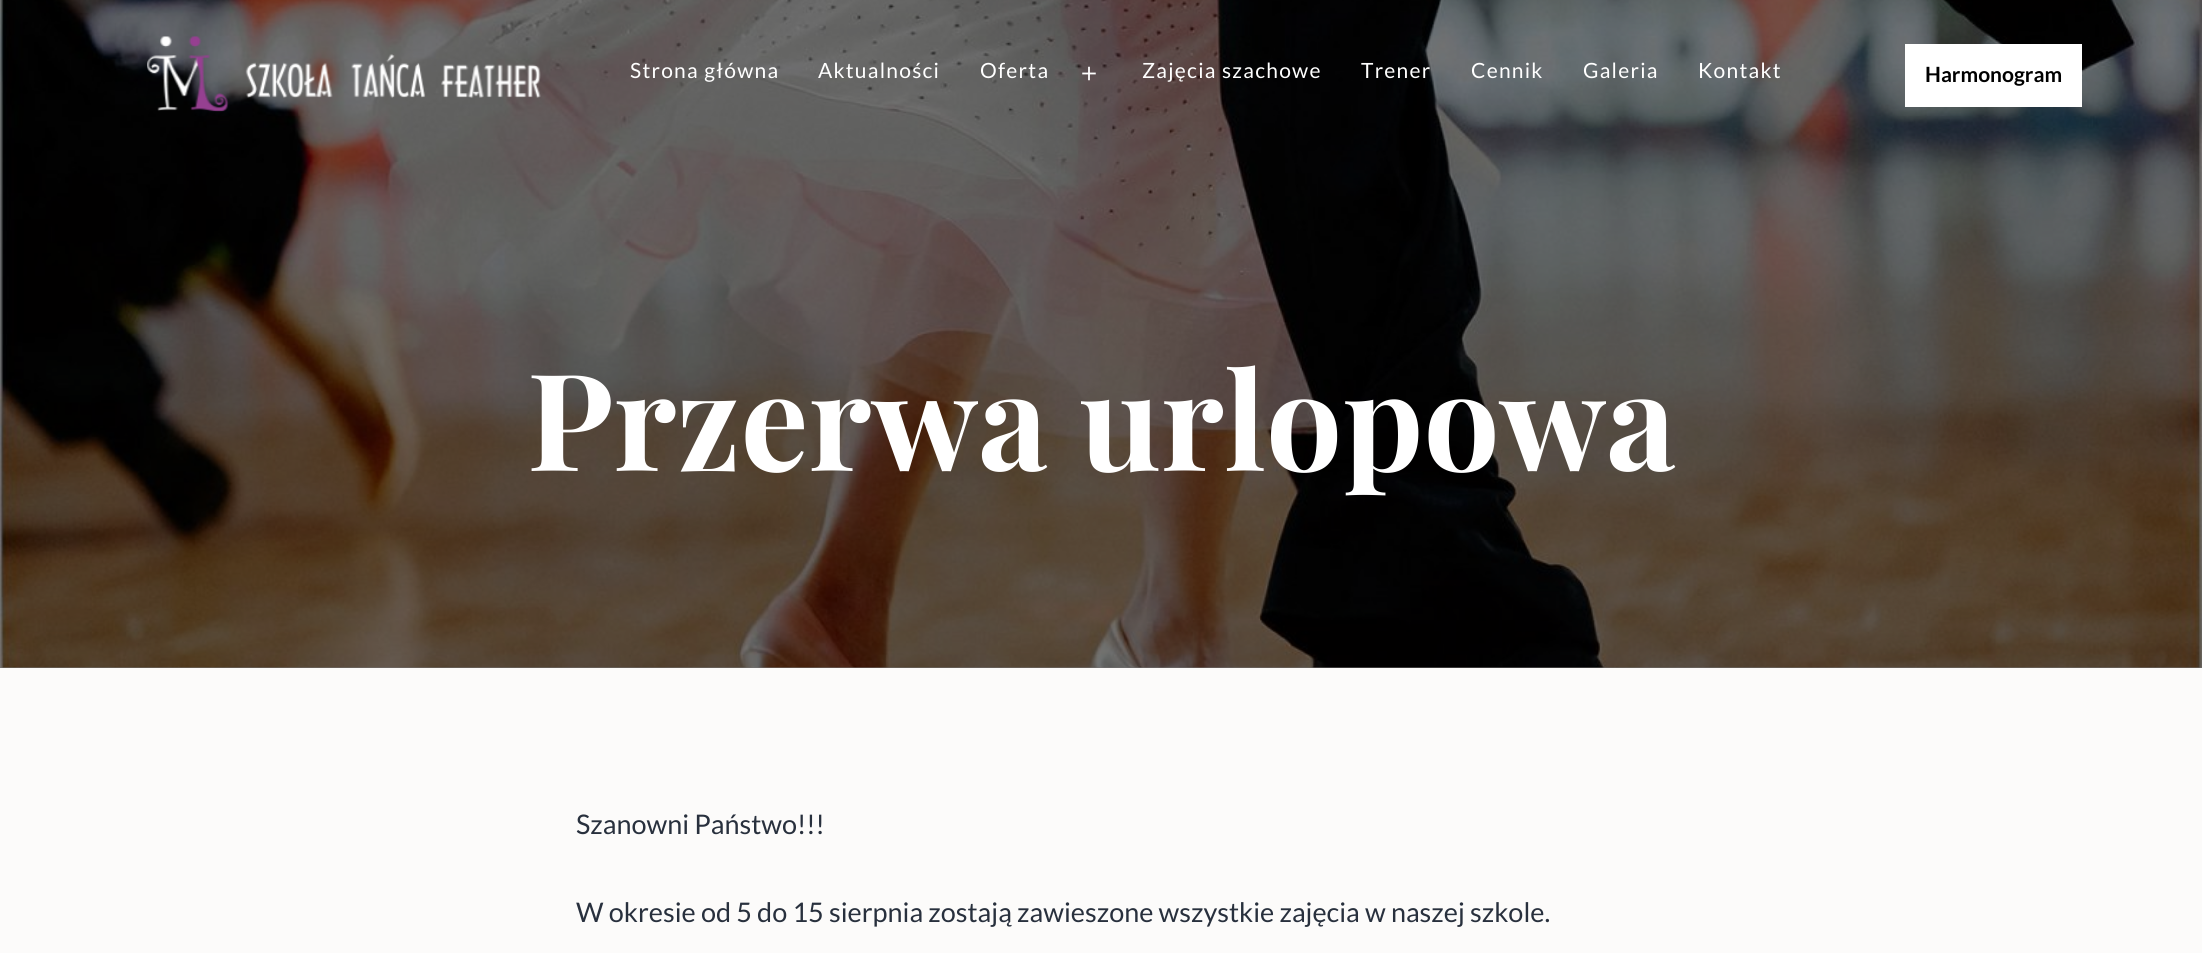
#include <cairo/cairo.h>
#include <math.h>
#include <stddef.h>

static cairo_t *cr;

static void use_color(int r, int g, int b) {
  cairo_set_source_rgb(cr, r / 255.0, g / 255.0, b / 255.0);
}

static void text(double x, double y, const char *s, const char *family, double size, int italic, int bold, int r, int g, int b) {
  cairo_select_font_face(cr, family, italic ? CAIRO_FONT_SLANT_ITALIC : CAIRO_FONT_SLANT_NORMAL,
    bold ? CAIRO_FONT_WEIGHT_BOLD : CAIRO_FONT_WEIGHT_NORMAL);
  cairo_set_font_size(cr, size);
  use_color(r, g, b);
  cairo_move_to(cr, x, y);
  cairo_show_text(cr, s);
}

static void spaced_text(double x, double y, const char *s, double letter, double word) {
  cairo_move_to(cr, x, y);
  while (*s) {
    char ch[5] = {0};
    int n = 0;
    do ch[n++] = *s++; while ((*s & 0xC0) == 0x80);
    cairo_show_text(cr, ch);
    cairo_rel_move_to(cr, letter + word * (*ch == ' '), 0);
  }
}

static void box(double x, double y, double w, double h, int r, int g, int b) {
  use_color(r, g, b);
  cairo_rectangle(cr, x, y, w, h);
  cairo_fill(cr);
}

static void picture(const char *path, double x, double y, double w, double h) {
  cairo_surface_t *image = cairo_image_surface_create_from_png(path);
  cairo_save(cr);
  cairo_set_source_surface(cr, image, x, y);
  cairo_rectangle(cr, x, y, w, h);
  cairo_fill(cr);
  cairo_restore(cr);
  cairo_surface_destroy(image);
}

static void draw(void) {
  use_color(252, 251, 250);
  cairo_paint(cr);
  box(0, 667, 2202, 1, 116, 115, 115);
  picture("img_03.png", 0, 0, 2202, 668);
  picture("img_01.png", 147, 36, 394, 76);
  picture("img_02.png", 1082, 66, 14, 15);
  box(1905, 44, 177, 63, 255, 255, 255);
  cairo_select_font_face(cr, "Lato", CAIRO_FONT_SLANT_NORMAL, CAIRO_FONT_WEIGHT_NORMAL);
  cairo_set_font_size(cr, 21);
  spaced_text(630, 78, "Strona główna", 1.25, 0);
  spaced_text(818, 78, "Aktualności", 1.25, 0);
  spaced_text(980, 78, "Oferta", 1.25, 0);
  spaced_text(1142, 78, "Zajęcia szachowe", 1.25, 0);
  spaced_text(1361, 78, "Trener", 1.25, 0);
  spaced_text(1471, 78, "Cennik", 1.25, 0);
  spaced_text(1583, 78, "Galeria", 1.25, 0);
  spaced_text(1698, 78, "Kontakt", 1.25, 0);
  text(1925, 82, "Harmonogram", "Lato", 21, 0, 1, 0, 0, 0);
  text(527, 471, "Przerwa urlopowa", "Playfair Display", 135, 0, 1, 255, 255, 255);
  text(576, 834, "Szanowni Państwo!!!", "Lato", 27, 0, 0, 40, 48, 61);
  text(576, 922, "W okresie od 5 do 15 sierpnia zostają zawieszone wszystkie zajęcia w naszej szkole.", "Lato", 27, 0, 0, 40, 48, 61);
}

int main(void) {
  cairo_surface_t *surface = cairo_image_surface_create(CAIRO_FORMAT_RGB24, 2202, 953);
  cr = cairo_create(surface);
  cairo_font_options_t *options = cairo_font_options_create();
  cairo_font_options_set_hint_metrics(options, CAIRO_HINT_METRICS_OFF);
  cairo_font_options_set_hint_style(options, CAIRO_HINT_STYLE_NONE);
  cairo_set_font_options(cr, options);
  cairo_set_miter_limit(cr, 4);
  draw();
  cairo_surface_write_to_png(surface, "out.png");
  cairo_font_options_destroy(options);
  cairo_destroy(cr);
  cairo_surface_destroy(surface);
  return 0;
}
